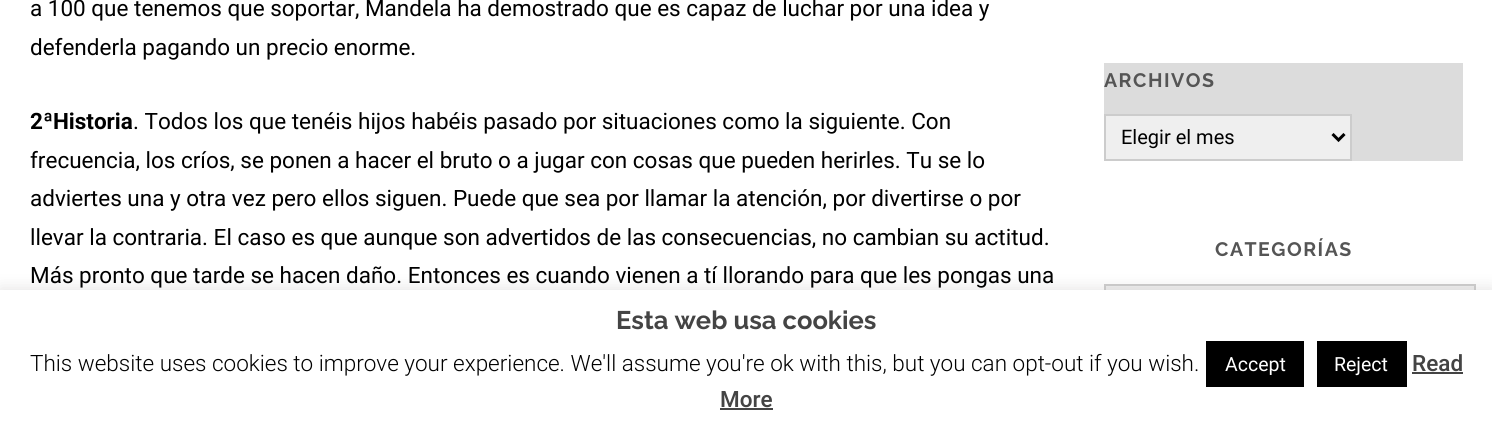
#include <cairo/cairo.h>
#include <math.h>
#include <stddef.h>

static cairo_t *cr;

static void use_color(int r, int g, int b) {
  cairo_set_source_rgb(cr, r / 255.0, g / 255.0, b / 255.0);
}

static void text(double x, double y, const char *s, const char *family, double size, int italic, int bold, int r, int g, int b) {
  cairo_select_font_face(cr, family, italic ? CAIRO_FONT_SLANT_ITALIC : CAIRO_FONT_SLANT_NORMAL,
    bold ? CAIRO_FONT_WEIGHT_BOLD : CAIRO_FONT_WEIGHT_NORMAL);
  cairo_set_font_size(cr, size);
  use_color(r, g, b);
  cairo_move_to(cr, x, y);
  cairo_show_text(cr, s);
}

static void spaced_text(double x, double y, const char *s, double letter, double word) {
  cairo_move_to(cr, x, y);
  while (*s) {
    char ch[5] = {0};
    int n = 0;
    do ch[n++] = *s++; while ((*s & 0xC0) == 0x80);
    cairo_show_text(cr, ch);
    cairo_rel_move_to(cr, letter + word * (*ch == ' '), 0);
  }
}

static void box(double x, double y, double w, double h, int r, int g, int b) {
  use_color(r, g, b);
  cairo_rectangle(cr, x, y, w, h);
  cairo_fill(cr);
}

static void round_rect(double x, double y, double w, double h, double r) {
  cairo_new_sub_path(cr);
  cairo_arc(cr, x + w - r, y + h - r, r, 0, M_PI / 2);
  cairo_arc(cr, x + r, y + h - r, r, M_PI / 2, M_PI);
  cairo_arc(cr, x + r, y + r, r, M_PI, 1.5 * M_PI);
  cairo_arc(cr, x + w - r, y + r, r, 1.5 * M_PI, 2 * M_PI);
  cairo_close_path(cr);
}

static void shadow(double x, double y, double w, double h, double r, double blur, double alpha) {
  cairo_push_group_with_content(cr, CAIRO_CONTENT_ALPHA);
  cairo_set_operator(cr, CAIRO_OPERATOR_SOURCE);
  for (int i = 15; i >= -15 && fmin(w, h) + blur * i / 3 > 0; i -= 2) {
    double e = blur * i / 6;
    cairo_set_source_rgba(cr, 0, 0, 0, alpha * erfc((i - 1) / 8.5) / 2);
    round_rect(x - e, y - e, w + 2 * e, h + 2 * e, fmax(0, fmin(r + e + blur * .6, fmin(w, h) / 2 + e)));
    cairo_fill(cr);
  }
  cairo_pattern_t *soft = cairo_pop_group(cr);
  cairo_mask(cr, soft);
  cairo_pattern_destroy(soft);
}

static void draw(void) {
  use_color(255, 255, 255);
  cairo_paint(cr);
  box(1104, 63, 359, 98, 220, 220, 220);
  use_color(239, 239, 239);
  cairo_rectangle(cr, 1105, 115, 246, 45);
  cairo_fill_preserve(cr);
  use_color(204, 204, 204);
  cairo_stroke(cr);
  cairo_new_path(cr);
  cairo_move_to(cr, 1332.5, 134);
  cairo_line_to(cr, 1338.5, 140);
  cairo_line_to(cr, 1344.5, 134);
  use_color(0, 0, 0);
  cairo_set_line_width(cr, 3);
  cairo_stroke(cr);
  box(1106, 286, 368, 4, 239, 239, 239);
  cairo_rectangle(cr, 1105, 285, 370, 44);
  use_color(204, 204, 204);
  cairo_set_line_width(cr, 2);
  cairo_stroke(cr);
  use_color(172, 171, 171);
  shadow(0, 288, 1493, 140, 0, 7.5, 0.3);
  box(0, 290, 1492, 138, 255, 255, 255);
  box(1206, 341, 98, 46, 0, 0, 0);
  box(1317, 341, 90, 46, 0, 0, 0);
  box(1412, 372, 51, 2, 68, 68, 68);
  box(720, 408, 53, 2, 68, 68, 68);
  text(30, 16, "a 100 que tenemos que soportar, Mandela ha demostrado que es capaz de luchar por una idea y", "Roboto", 22.5, 0, 0, 0, 0, 0);
  text(30, 55, "defenderla pagando un precio enorme.", "Roboto", 22.5, 0, 0, 0, 0, 0);
  text(30, 129, "2ªHistoria", "Roboto", 22.5, 0, 1, 0, 0, 0);
  text(133, 129, ". Todos los que tenéis hijos habéis pasado por situaciones como la siguiente. Con", "Roboto", 22.5, 0, 0, 0, 0, 0);
  text(30, 168, "frecuencia, los críos, se ponen a hacer el bruto o a jugar con cosas que pueden herirles. Tu se lo", "Roboto", 22.5, 0, 0, 0, 0, 0);
  text(30, 206, "adviertes una y otra vez pero ellos siguen. Puede que sea por llamar la atención, por divertirse o por", "Roboto", 22.5, 0, 0, 0, 0, 0);
  text(30, 245, "llevar la contraria. El caso es que aunque son advertidos de las consecuencias, no cambian su actitud.", "Roboto", 22.5, 0, 0, 0, 0, 0);
  text(30, 283, "Más pronto que tarde se hacen daño. Entonces es cuando vienen a tí llorando para que les pongas una", "Roboto", 22.5, 0, 0, 0, 0, 0);
  cairo_select_font_face(cr, "Raleway", CAIRO_FONT_SLANT_NORMAL, CAIRO_FONT_WEIGHT_BOLD);
  cairo_set_font_size(cr, 19.5);
  use_color(85, 85, 85);
  spaced_text(1104, 87, "ARCHIVOS", 1.5, 0);
  text(1121, 144, "Elegir el mes", "Roboto", 20, 0, 0, 0, 0, 0);
  cairo_select_font_face(cr, "Raleway", CAIRO_FONT_SLANT_NORMAL, CAIRO_FONT_WEIGHT_BOLD);
  cairo_set_font_size(cr, 19.5);
  use_color(85, 85, 85);
  spaced_text(1215, 256, "CATEGORÍAS", 1.5, 0);
  text(616, 329, "Esta web usa cookies", "Raleway", 25.5, 0, 1, 68, 68, 68);
  text(30, 371, "This website uses cookies to improve your experience. We'll assume you're ok with this, but you can opt-out if you wish.", "Roboto Light", 22.5, 0, 0, 0, 0, 0);
  text(1225, 371, "Accept", "Roboto", 19.5, 0, 0, 255, 255, 255);
  text(1334, 371, "Reject", "Roboto", 19.5, 0, 0, 255, 255, 255);
  text(1412, 371, "Read", "Roboto Medium", 22.5, 0, 0, 68, 68, 68);
  text(720, 407, "More", "Roboto Medium", 22.5, 0, 0, 68, 68, 68);
}

int main(void) {
  cairo_surface_t *surface = cairo_image_surface_create(CAIRO_FORMAT_RGB24, 1492, 428);
  cr = cairo_create(surface);
  cairo_font_options_t *options = cairo_font_options_create();
  cairo_font_options_set_hint_metrics(options, CAIRO_HINT_METRICS_OFF);
  cairo_font_options_set_hint_style(options, CAIRO_HINT_STYLE_NONE);
  cairo_set_font_options(cr, options);
  cairo_set_miter_limit(cr, 4);
  draw();
  cairo_surface_write_to_png(surface, "out.png");
  cairo_font_options_destroy(options);
  cairo_destroy(cr);
  cairo_surface_destroy(surface);
  return 0;
}
